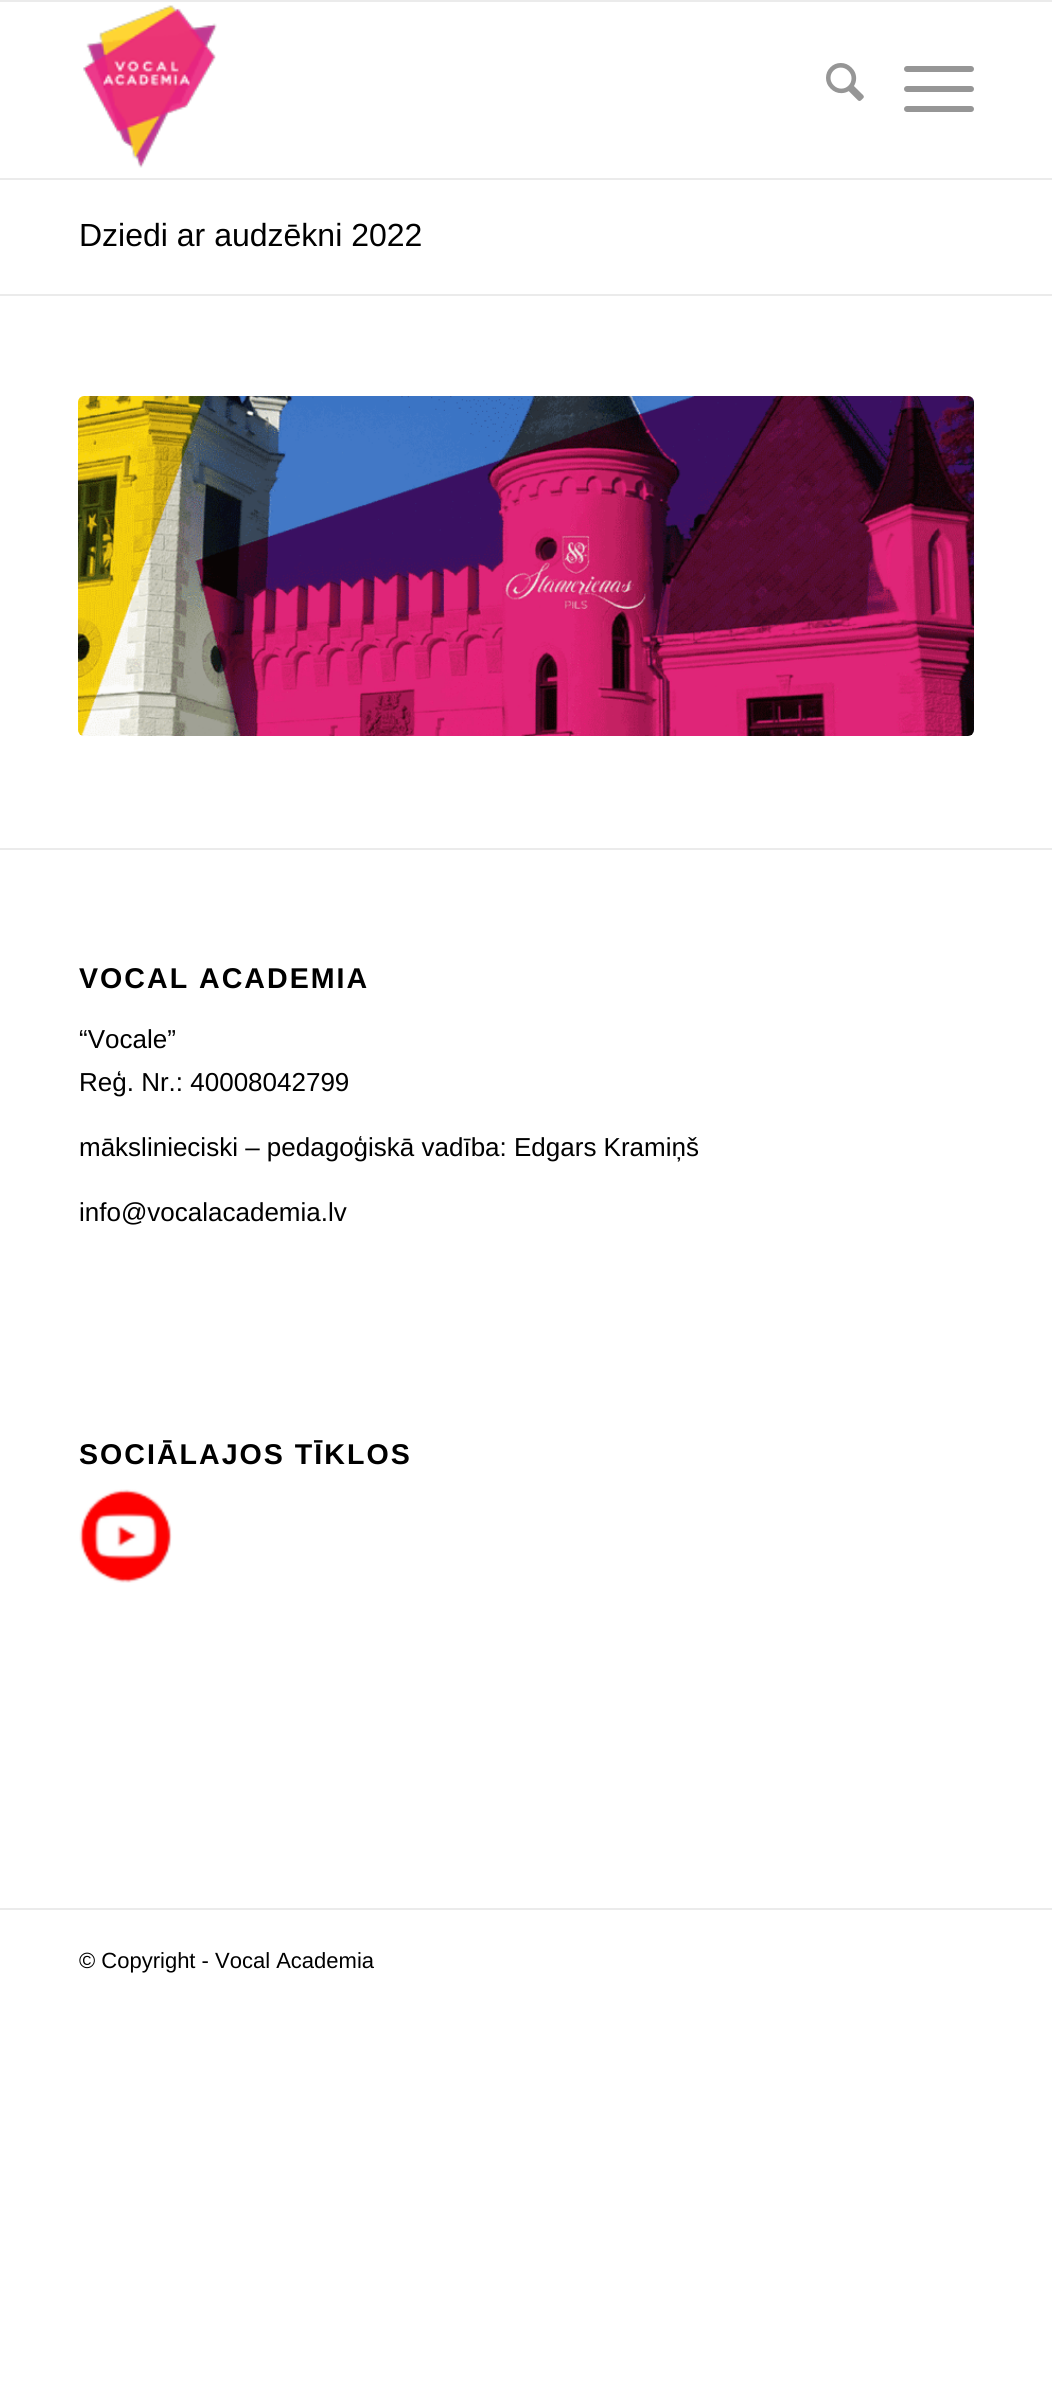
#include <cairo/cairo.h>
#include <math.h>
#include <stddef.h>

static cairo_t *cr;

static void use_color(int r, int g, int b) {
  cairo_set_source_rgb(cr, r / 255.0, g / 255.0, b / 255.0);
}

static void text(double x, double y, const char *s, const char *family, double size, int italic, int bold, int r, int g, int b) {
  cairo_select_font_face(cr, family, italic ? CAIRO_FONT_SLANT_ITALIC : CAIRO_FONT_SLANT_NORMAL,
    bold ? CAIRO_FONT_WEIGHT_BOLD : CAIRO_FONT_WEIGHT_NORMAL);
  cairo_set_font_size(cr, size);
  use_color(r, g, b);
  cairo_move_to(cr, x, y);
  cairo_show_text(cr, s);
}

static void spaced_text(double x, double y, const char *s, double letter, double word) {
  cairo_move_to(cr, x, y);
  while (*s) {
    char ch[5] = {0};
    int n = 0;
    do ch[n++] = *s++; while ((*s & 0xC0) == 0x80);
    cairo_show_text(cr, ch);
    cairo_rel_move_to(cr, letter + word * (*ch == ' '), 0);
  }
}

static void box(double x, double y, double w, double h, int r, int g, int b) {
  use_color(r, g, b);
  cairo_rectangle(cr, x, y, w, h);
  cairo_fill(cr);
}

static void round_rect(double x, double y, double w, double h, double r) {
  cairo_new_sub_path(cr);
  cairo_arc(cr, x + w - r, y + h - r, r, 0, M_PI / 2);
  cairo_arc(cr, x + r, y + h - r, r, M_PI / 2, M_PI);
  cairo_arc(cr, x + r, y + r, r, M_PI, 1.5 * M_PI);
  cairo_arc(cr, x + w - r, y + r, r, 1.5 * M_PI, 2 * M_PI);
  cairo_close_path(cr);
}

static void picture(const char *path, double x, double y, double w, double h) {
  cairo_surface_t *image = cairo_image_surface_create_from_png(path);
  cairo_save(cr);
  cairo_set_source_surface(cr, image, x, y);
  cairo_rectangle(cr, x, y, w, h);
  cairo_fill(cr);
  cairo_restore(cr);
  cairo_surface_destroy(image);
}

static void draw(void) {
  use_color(255, 255, 255);
  cairo_paint(cr);
  box(0, 0, 1052, 2, 235, 235, 235);
  box(0, 178, 1052, 2, 235, 235, 235);
  picture("img_01.png", 83, 5, 134, 163);
  picture("img_02.png", 826, 63, 38, 38);
  use_color(150, 150, 150);
  round_rect(904, 86, 70, 6, 3);
  cairo_fill(cr);
  round_rect(904, 66, 70, 6, 3);
  cairo_fill(cr);
  round_rect(904, 106, 70, 6, 3);
  cairo_fill(cr);
  box(0, 294, 1052, 2, 235, 235, 235);
  picture("img_03.png", 78, 396, 896, 340);
  box(0, 848, 1052, 2, 235, 235, 235);
  picture("img_04.png", 79, 1489, 93, 94);
  box(0, 1908, 1052, 2, 235, 235, 235);
  text(79, 246, "Dziedi ar audzēkni 2022", "Liberation Sans", 32, 0, 0, 0, 0, 0);
  cairo_select_font_face(cr, "Liberation Sans", CAIRO_FONT_SLANT_NORMAL, CAIRO_FONT_WEIGHT_BOLD);
  cairo_set_font_size(cr, 28.6);
  spaced_text(79, 988, "VOCAL ACADEMIA", 2, 0);
  text(79, 1048, "“Vocale”", "Liberation Sans", 26, 0, 0, 0, 0, 0);
  text(79, 1091, "Reģ. Nr.: 40008042799", "Liberation Sans", 26, 0, 0, 0, 0, 0);
  text(79, 1156, "mākslinieciski – pedagoģiskā vadība: Edgars Kramiņš", "Liberation Sans", 26, 0, 0, 0, 0, 0);
  text(79, 1221, "info@vocalacademia.lv", "Liberation Sans", 26, 0, 0, 0, 0, 0);
  cairo_select_font_face(cr, "Liberation Sans", CAIRO_FONT_SLANT_NORMAL, CAIRO_FONT_WEIGHT_BOLD);
  cairo_set_font_size(cr, 28.6);
  spaced_text(79, 1464, "SOCIĀLAJOS TĪKLOS", 2, 0);
  text(79, 1968, "© Copyright - Vocal Academia", "Liberation Sans", 22, 0, 0, 0, 0, 0);
}

int main(void) {
  cairo_surface_t *surface = cairo_image_surface_create(CAIRO_FORMAT_RGB24, 1052, 2397);
  cr = cairo_create(surface);
  cairo_font_options_t *options = cairo_font_options_create();
  cairo_font_options_set_hint_metrics(options, CAIRO_HINT_METRICS_OFF);
  cairo_font_options_set_hint_style(options, CAIRO_HINT_STYLE_NONE);
  cairo_set_font_options(cr, options);
  cairo_set_miter_limit(cr, 4);
  draw();
  cairo_surface_write_to_png(surface, "out.png");
  cairo_font_options_destroy(options);
  cairo_destroy(cr);
  cairo_surface_destroy(surface);
  return 0;
}
